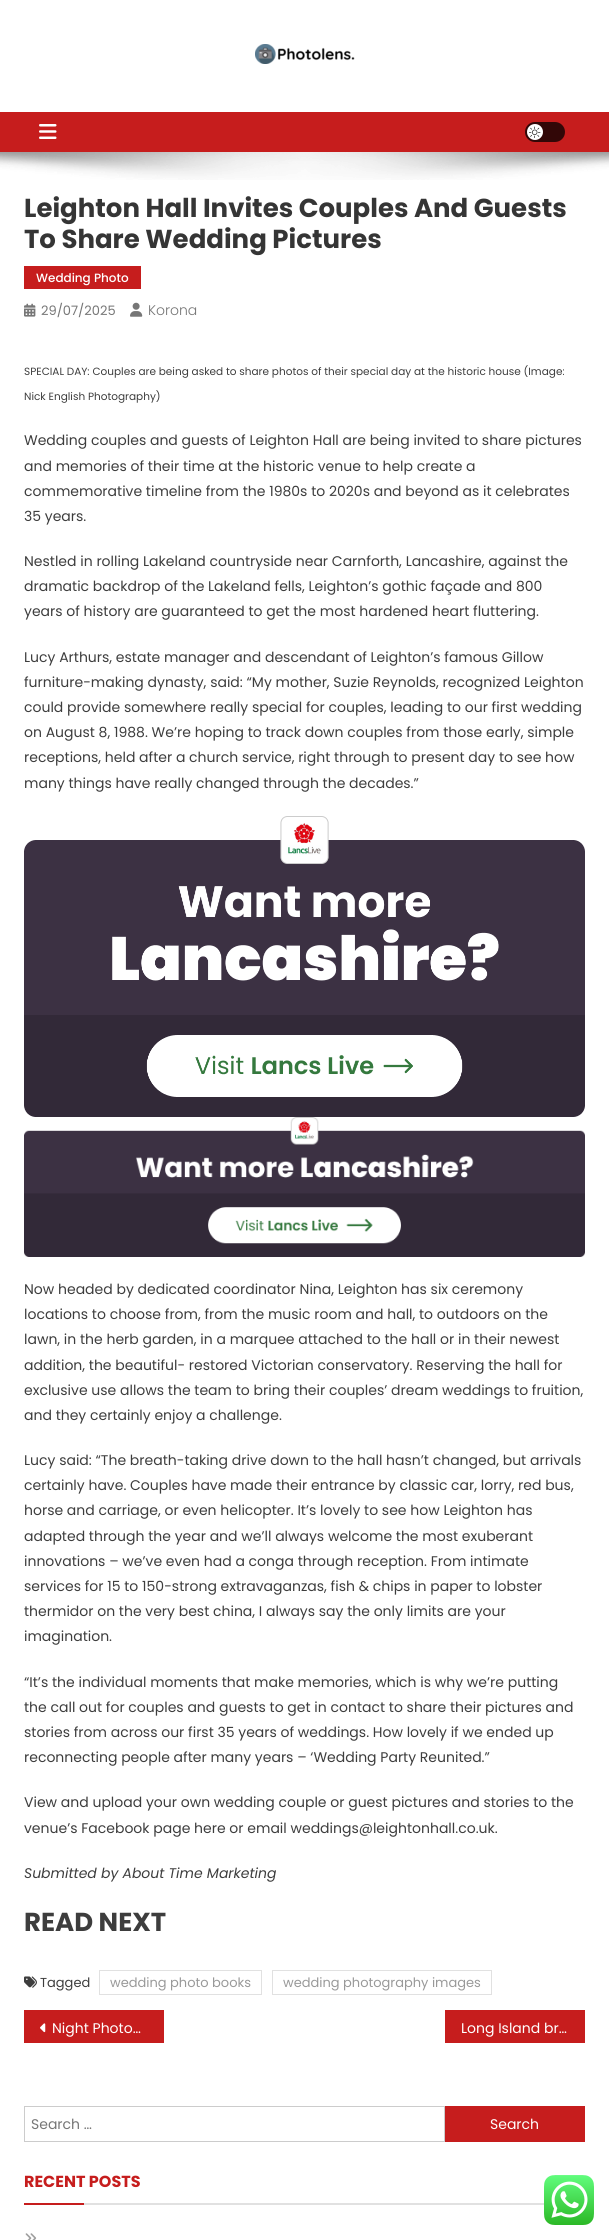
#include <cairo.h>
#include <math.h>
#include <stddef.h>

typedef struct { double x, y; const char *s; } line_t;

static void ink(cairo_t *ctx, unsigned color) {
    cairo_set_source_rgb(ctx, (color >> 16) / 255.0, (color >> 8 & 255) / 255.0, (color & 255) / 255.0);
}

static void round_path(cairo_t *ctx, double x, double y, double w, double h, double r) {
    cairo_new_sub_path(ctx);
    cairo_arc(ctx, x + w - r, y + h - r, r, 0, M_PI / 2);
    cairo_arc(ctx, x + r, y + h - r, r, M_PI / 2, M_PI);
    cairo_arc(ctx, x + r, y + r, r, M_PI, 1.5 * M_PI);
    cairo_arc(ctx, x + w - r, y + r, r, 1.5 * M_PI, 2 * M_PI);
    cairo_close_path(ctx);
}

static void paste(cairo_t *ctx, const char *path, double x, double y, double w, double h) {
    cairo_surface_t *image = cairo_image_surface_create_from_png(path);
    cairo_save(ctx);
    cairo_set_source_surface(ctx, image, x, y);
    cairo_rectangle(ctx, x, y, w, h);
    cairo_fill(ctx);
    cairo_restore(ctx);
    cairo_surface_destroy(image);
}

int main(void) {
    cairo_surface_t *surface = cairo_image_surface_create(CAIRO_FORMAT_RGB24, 609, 2240);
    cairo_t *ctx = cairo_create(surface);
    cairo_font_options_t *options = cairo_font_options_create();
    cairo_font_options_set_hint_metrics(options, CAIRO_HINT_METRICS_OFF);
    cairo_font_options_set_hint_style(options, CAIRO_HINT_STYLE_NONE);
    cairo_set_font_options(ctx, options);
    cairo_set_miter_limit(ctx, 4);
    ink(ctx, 0xFFFFFF);
    cairo_paint(ctx);
    paste(ctx, "media/1.png", 255, 44, 100, 20);
    ink(ctx, 0xC61D1D);
    cairo_rectangle(ctx, 0, 112, 609, 40);
    cairo_fill(ctx);
    paste(ctx, "media/2.png", 39, 124, 18, 15);
    ink(ctx, 0x320707);
    round_path(ctx, 525, 122, 40, 20, 10);
    cairo_fill(ctx);
    ink(ctx, 0xFFFFFF);
    cairo_arc(ctx, 535, 132, 8, 0, 2 * M_PI);
    cairo_fill(ctx);
    paste(ctx, "media/3.png", 529, 126, 12, 12);
    paste(ctx, "media/4.png", 0, 152, 609, 28);
    cairo_select_font_face(ctx, "Poppins", CAIRO_FONT_SLANT_NORMAL, CAIRO_FONT_WEIGHT_BOLD);
    cairo_set_font_size(ctx, 26);
    ink(ctx, 0x353535);
    cairo_move_to(ctx, 24, 217);
    cairo_show_text(ctx, "Leighton Hall Invites Couples And Guests");
    cairo_move_to(ctx, 24, 248);
    cairo_show_text(ctx, "To Share Wedding Pictures");
    ink(ctx, 0xC61D1D);
    cairo_rectangle(ctx, 24, 266, 117, 23);
    cairo_fill(ctx);
    cairo_select_font_face(ctx, "Poppins Medium", CAIRO_FONT_SLANT_NORMAL, CAIRO_FONT_WEIGHT_NORMAL);
    cairo_set_font_size(ctx, 12);
    ink(ctx, 0xFFFFFF);
    cairo_move_to(ctx, 36, 282);
    cairo_show_text(ctx, "Wedding Photo");
    paste(ctx, "media/5.png", 24, 303, 12, 14);
    cairo_select_font_face(ctx, "Poppins", CAIRO_FONT_SLANT_NORMAL, CAIRO_FONT_WEIGHT_NORMAL);
    cairo_set_font_size(ctx, 13);
    ink(ctx, 0x767676);
    cairo_move_to(ctx, 41, 315);
    cairo_show_text(ctx, "29/07/2025");
    paste(ctx, "media/6.png", 130, 302, 13, 15);
    cairo_select_font_face(ctx, "Poppins Light", CAIRO_FONT_SLANT_NORMAL, CAIRO_FONT_WEIGHT_NORMAL);
    cairo_set_font_size(ctx, 14);
    cairo_move_to(ctx, 148, 315);
    cairo_show_text(ctx, "Korona");
    cairo_select_font_face(ctx, "Poppins", CAIRO_FONT_SLANT_NORMAL, CAIRO_FONT_WEIGHT_NORMAL);
    cairo_set_font_size(ctx, 10.5);
    ink(ctx, 0x3D3D3D);
    cairo_move_to(ctx, 24, 375);
    cairo_show_text(ctx, "SPECIAL DAY: Couples are being asked to share photos of their special day at the historic house (Image:");
    cairo_move_to(ctx, 24, 400);
    cairo_show_text(ctx, "Nick English Photography)");
    cairo_set_font_size(ctx, 14);
    {
        static const line_t items[] = {
            {24, 445, "Wedding couples and guests of Leighton Hall are being invited to share pictures"},
            {24, 471, "and memories of their time at the historic venue to help create a"},
            {24, 496, "commemorative timeline from the 1980s to 2020s and beyond as it celebrates"},
            {24, 521, "35 years."},
            {24, 566, "Nestled in rolling Lakeland countryside near Carnforth, Lancashire, against the"},
            {24, 591, "dramatic backdrop of the Lakeland fells, Leighton’s gothic façade and 800"},
            {24, 616, "years of history are guaranteed to get the most hardened heart fluttering."},
            {24, 662, "Lucy Arthurs, estate manager and descendant of Leighton’s famous Gillow"},
            {24, 687, "furniture-making dynasty, said: “My mother, Suzie Reynolds, recognized Leighton"},
            {24, 712, "could provide somewhere really special for couples, leading to our first wedding"},
            {24, 737, "on August 8, 1988. We’re hoping to track down couples from those early, simple"},
            {24, 762, "receptions, held after a church service, right through to present day to see how"},
            {24, 788, "many things have really changed through the decades.”"},
        };
        for (size_t i = 0; i < sizeof items / sizeof *items; i++) {
            cairo_move_to(ctx, items[i].x, items[i].y);
            cairo_show_text(ctx, items[i].s);
        }
    }
    paste(ctx, "media/7.png", 24, 816, 561, 301);
    paste(ctx, "media/8.png", 24, 1117, 561, 140);
    {
        static const line_t items[] = {
            {24, 1294, "Now headed by dedicated coordinator Nina, Leighton has six ceremony"},
            {24, 1319, "locations to choose from, from the music room and hall, to outdoors on the"},
            {24, 1344, "lawn, in the herb garden, in a marquee attached to the hall or in their newest"},
            {24, 1370, "addition, the beautiful- restored Victorian conservatory. Reserving the hall for"},
            {24, 1395, "exclusive use allows the team to bring their couples’ dream weddings to fruition,"},
            {24, 1420, "and they certainly enjoy a challenge."},
            {24, 1465, "Lucy said: “The breath-taking drive down to the hall hasn’t changed, but arrivals"},
            {24, 1490, "certainly have. Couples have made their entrance by classic car, lorry, red bus,"},
            {24, 1515, "horse and carriage, or even helicopter. It’s lovely to see how Leighton has"},
            {24, 1541, "adapted through the year and we’ll always welcome the most exuberant"},
            {24, 1566, "innovations – we’ve even had a conga through reception. From intimate"},
            {24, 1591, "services for 15 to 150-strong extravaganzas, fish & chips in paper to lobster"},
            {24, 1616, "thermidor on the very best china, I always say the only limits are your"},
            {24, 1641, "imagination."},
            {24, 1687, "“It’s the individual moments that make memories, which is why we’re putting"},
            {24, 1712, "the call out for couples and guests to get in contact to share their pictures and"},
            {24, 1737, "stories from across our first 35 years of weddings. How lovely if we ended up"},
            {24, 1762, "reconnecting people after many years – ‘Wedding Party Reunited.”"},
            {24, 1807, "View and upload your own wedding couple or guest pictures and stories to the"},
            {24, 1833, "venue’s Facebook page here or email weddings@leightonhall.co.uk."},
        };
        for (size_t i = 0; i < sizeof items / sizeof *items; i++) {
            cairo_move_to(ctx, items[i].x, items[i].y);
            cairo_show_text(ctx, items[i].s);
        }
    }
    cairo_select_font_face(ctx, "Poppins", CAIRO_FONT_SLANT_ITALIC, CAIRO_FONT_WEIGHT_NORMAL);
    cairo_move_to(ctx, 24, 1878);
    cairo_show_text(ctx, "Submitted by About Time Marketing");
    cairo_select_font_face(ctx, "Poppins", CAIRO_FONT_SLANT_NORMAL, CAIRO_FONT_WEIGHT_BOLD);
    cairo_set_font_size(ctx, 26);
    cairo_move_to(ctx, 24, 1931);
    cairo_show_text(ctx, "READ NEXT");
    paste(ctx, "media/9.png", 24, 1976, 13, 12);
    cairo_select_font_face(ctx, "Poppins", CAIRO_FONT_SLANT_NORMAL, CAIRO_FONT_WEIGHT_NORMAL);
    cairo_set_font_size(ctx, 13);
    cairo_move_to(ctx, 40, 1987);
    cairo_show_text(ctx, "Tagged");
    cairo_rectangle(ctx, 99.5, 1970.5, 162, 24);
    ink(ctx, 0xE1E1E1);
    cairo_set_line_width(ctx, 1);
    cairo_stroke(ctx);
    ink(ctx, 0x999999);
    cairo_move_to(ctx, 110, 1987);
    cairo_show_text(ctx, "wedding photo books");
    cairo_rectangle(ctx, 272.5, 1970.5, 219, 24);
    ink(ctx, 0xE1E1E1);
    cairo_stroke(ctx);
    ink(ctx, 0x999999);
    cairo_move_to(ctx, 283, 1987);
    cairo_show_text(ctx, "wedding photography images");
    ink(ctx, 0xC61D1D);
    cairo_rectangle(ctx, 24, 2010, 140, 33);
    cairo_fill(ctx);
    paste(ctx, "media/10.png", 40, 2023, 6, 10);
    cairo_set_font_size(ctx, 14);
    ink(ctx, 0xFFFFFF);
    cairo_move_to(ctx, 52, 2033);
    cairo_show_text(ctx, "Night Photo…");
    ink(ctx, 0xC61D1D);
    cairo_rectangle(ctx, 445, 2010, 140, 33);
    cairo_fill(ctx);
    ink(ctx, 0xFFFFFF);
    cairo_move_to(ctx, 461, 2033);
    cairo_show_text(ctx, "Long Island br…");
    cairo_rectangle(ctx, 24.5, 2106.5, 420, 35);
    ink(ctx, 0xCCCCCC);
    cairo_stroke(ctx);
    ink(ctx, 0x767676);
    cairo_move_to(ctx, 31, 2129);
    cairo_show_text(ctx, "Search …");
    ink(ctx, 0xC61D1D);
    cairo_rectangle(ctx, 445, 2106, 140, 36);
    cairo_fill(ctx);
    ink(ctx, 0xFFFFFF);
    cairo_move_to(ctx, 490, 2129);
    cairo_show_text(ctx, "Search");
    ink(ctx, 0xE1E1E1);
    cairo_rectangle(ctx, 84, 2203, 460, 2);
    cairo_fill(ctx);
    cairo_select_font_face(ctx, "Poppins", CAIRO_FONT_SLANT_NORMAL, CAIRO_FONT_WEIGHT_BOLD);
    cairo_set_font_size(ctx, 16);
    ink(ctx, 0xC61D1D);
    cairo_move_to(ctx, 24, 2187);
    cairo_show_text(ctx, "RECENT POSTS");
    cairo_rectangle(ctx, 24, 2203, 60, 2);
    cairo_fill(ctx);
    paste(ctx, "media/11.png", 25, 2233, 12, 7);
    paste(ctx, "media/12.png", 544, 2175, 50, 50);
    cairo_surface_write_to_png(surface, "image.png");
    cairo_font_options_destroy(options);
    cairo_destroy(ctx);
    cairo_surface_destroy(surface);
    return 0;
}
